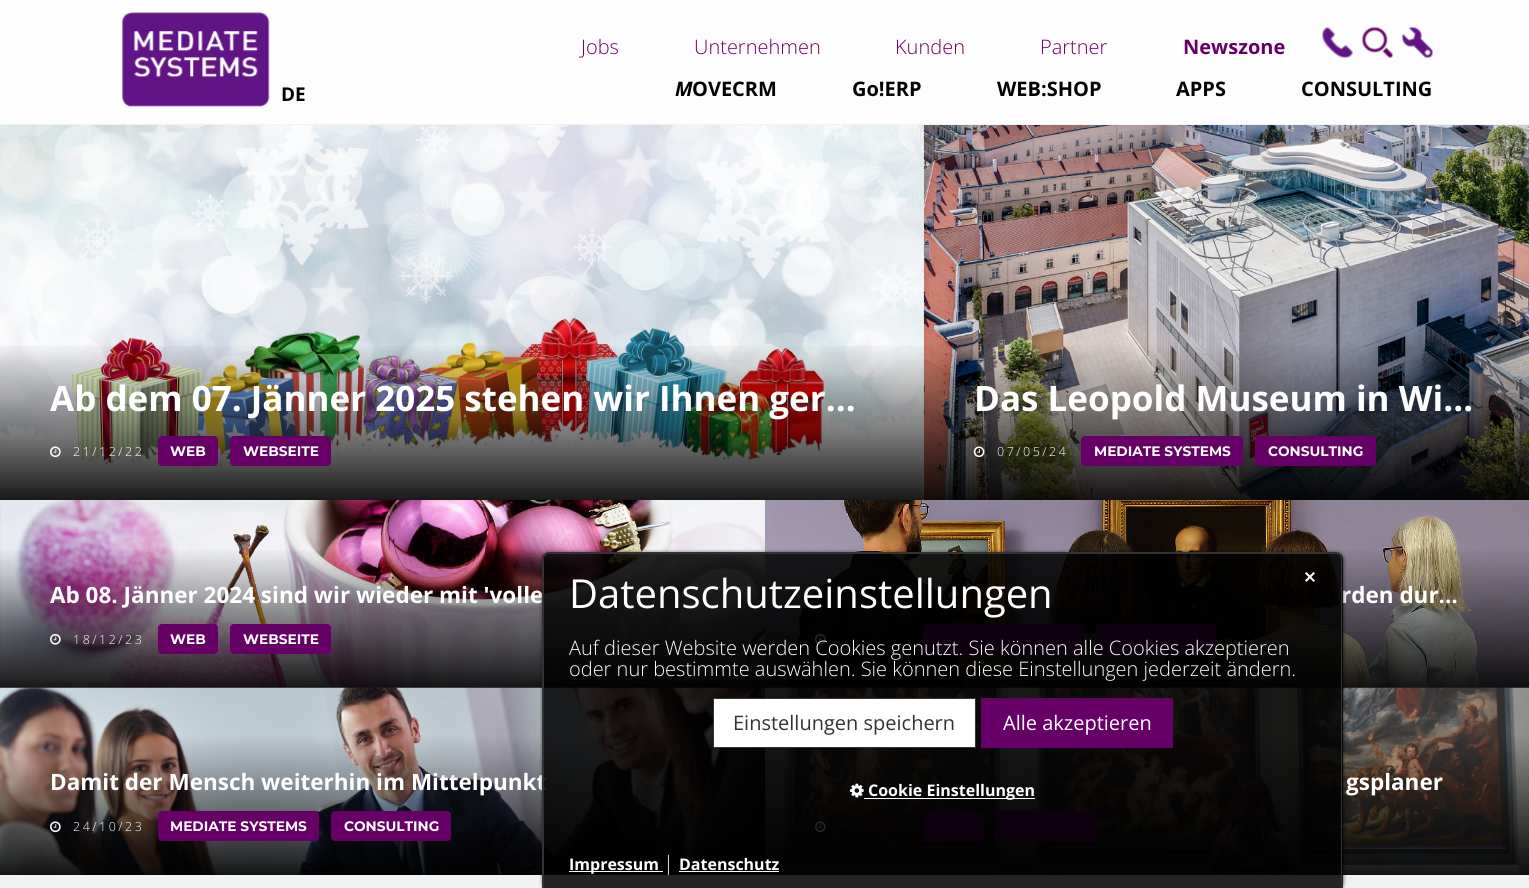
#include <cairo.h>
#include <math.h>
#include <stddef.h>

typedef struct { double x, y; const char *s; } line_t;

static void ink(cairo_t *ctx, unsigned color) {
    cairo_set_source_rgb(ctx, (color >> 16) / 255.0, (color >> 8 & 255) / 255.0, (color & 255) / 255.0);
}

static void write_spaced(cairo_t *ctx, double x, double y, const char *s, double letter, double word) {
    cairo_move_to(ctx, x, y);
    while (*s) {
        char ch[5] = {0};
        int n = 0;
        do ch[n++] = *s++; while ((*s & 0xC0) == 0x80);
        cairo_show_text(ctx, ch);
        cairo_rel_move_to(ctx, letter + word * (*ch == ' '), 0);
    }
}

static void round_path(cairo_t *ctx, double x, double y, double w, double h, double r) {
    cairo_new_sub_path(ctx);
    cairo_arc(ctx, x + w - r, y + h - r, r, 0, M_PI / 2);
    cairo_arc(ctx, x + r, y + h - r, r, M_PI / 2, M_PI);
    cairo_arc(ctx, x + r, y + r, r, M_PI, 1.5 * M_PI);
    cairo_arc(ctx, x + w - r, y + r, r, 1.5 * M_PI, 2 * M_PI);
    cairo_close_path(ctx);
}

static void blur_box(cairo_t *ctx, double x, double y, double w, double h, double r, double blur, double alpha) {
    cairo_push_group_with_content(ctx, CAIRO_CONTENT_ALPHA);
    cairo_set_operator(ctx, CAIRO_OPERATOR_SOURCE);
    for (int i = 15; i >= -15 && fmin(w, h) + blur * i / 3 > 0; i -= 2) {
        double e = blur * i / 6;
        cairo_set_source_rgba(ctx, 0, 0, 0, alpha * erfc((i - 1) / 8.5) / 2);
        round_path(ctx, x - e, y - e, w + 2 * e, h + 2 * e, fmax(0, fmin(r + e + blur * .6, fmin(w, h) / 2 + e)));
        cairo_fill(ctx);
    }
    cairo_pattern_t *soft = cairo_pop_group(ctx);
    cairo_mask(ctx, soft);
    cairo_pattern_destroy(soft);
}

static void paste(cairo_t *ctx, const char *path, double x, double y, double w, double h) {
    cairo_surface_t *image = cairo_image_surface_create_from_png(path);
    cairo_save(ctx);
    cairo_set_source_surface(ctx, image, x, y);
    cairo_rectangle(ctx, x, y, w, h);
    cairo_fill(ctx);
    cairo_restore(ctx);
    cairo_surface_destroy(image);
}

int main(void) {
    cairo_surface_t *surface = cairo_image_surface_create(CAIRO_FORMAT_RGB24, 1529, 888);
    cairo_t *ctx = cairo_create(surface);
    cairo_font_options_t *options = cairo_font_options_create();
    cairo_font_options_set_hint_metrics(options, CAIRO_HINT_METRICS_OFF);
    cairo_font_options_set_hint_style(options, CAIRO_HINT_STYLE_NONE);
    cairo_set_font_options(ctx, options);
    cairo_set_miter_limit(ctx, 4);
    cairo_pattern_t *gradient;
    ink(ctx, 0xF0F3F2);
    cairo_paint(ctx);
    ink(ctx, 0xFCFDFC);
    cairo_rectangle(ctx, 0, 0, 1529, 124);
    cairo_fill(ctx);
    paste(ctx, "media/1.png", 122, 12, 148, 95);
    cairo_select_font_face(ctx, "Open Sans", CAIRO_FONT_SLANT_NORMAL, CAIRO_FONT_WEIGHT_BOLD);
    cairo_set_font_size(ctx, 19);
    ink(ctx, 0x000000);
    cairo_move_to(ctx, 281, 101);
    cairo_show_text(ctx, "DE");
    cairo_select_font_face(ctx, "Open Sans Light", CAIRO_FONT_SLANT_NORMAL, CAIRO_FONT_WEIGHT_NORMAL);
    cairo_set_font_size(ctx, 20);
    ink(ctx, 0x660066);
    {
        static const line_t items[] = {
            {581, 54, "Jobs"},
            {694, 54, "Unternehmen"},
            {895, 54, "Kunden"},
            {1040, 54, "Partner"},
        };
        for (size_t i = 0; i < sizeof items / sizeof *items; i++) {
            cairo_move_to(ctx, items[i].x, items[i].y);
            cairo_show_text(ctx, items[i].s);
        }
    }
    cairo_select_font_face(ctx, "Open Sans", CAIRO_FONT_SLANT_NORMAL, CAIRO_FONT_WEIGHT_BOLD);
    cairo_move_to(ctx, 1183, 54);
    cairo_show_text(ctx, "Newszone");
    paste(ctx, "media/2.png", 1322, 27, 31, 31);
    paste(ctx, "media/3.png", 1362, 27, 31, 31);
    paste(ctx, "media/4.png", 1402, 27, 31, 31);
    cairo_select_font_face(ctx, "Open Sans", CAIRO_FONT_SLANT_ITALIC, CAIRO_FONT_WEIGHT_BOLD);
    ink(ctx, 0x000000);
    cairo_move_to(ctx, 675, 96);
    cairo_show_text(ctx, "M");
    cairo_select_font_face(ctx, "Open Sans", CAIRO_FONT_SLANT_NORMAL, CAIRO_FONT_WEIGHT_BOLD);
    {
        static const line_t items[] = {
            {692, 96, "OVECRM"},
            {852, 96, "Go!ERP"},
            {997, 96, "WEB:SHOP"},
            {1176, 96, "APPS"},
            {1301, 96, "CONSULTING"},
        };
        for (size_t i = 0; i < sizeof items / sizeof *items; i++) {
            cairo_move_to(ctx, items[i].x, items[i].y);
            cairo_show_text(ctx, items[i].s);
        }
    }
    paste(ctx, "media/5.png", 0, 125, 924, 375);
    gradient = cairo_pattern_create_linear(462, 342, 462, 500);
    cairo_pattern_add_color_stop_rgba(gradient, 0, 0, 0, 0, 0);
    cairo_pattern_add_color_stop_rgba(gradient, 1, 0, 0, 0, 0.9);
    cairo_set_source(ctx, gradient);
    cairo_pattern_destroy(gradient);
    cairo_rectangle(ctx, 0, 346, 924, 154);
    cairo_fill(ctx);
    cairo_set_font_size(ctx, 35);
    ink(ctx, 0xFFFFFF);
    cairo_move_to(ctx, 50, 411);
    cairo_show_text(ctx, "Ab dem 07. Jänner 2025 stehen wir Ihnen ger…");
    paste(ctx, "media/6.png", 50, 446, 11, 12);
    cairo_select_font_face(ctx, "Open Sans Light", CAIRO_FONT_SLANT_NORMAL, CAIRO_FONT_WEIGHT_NORMAL);
    cairo_set_font_size(ctx, 12.5);
    write_spaced(ctx, 73, 456, "21/12/22", 2.5, 0);
    ink(ctx, 0x660066);
    round_path(ctx, 158, 436, 60, 30, 4);
    cairo_fill(ctx);
    cairo_select_font_face(ctx, "Montserrat", CAIRO_FONT_SLANT_NORMAL, CAIRO_FONT_WEIGHT_BOLD);
    cairo_set_font_size(ctx, 13.75);
    ink(ctx, 0xFFFFFF);
    cairo_move_to(ctx, 170, 456);
    cairo_show_text(ctx, "WEB");
    ink(ctx, 0x660066);
    round_path(ctx, 230, 436, 101, 30, 4);
    cairo_fill(ctx);
    ink(ctx, 0xFFFFFF);
    cairo_move_to(ctx, 243, 456);
    cairo_show_text(ctx, "WEBSEITE");
    paste(ctx, "media/7.png", 923, 125, 606, 375);
    cairo_select_font_face(ctx, "Open Sans", CAIRO_FONT_SLANT_NORMAL, CAIRO_FONT_WEIGHT_BOLD);
    cairo_set_font_size(ctx, 35);
    cairo_move_to(ctx, 974, 411);
    cairo_show_text(ctx, "Das Leopold Museum in Wi…");
    paste(ctx, "media/8.png", 973, 446, 12, 12);
    cairo_select_font_face(ctx, "Open Sans Light", CAIRO_FONT_SLANT_NORMAL, CAIRO_FONT_WEIGHT_NORMAL);
    cairo_set_font_size(ctx, 12.5);
    write_spaced(ctx, 997, 456, "07/05/24", 2.5, 0);
    ink(ctx, 0x660066);
    round_path(ctx, 1081, 436, 162, 30, 4);
    cairo_fill(ctx);
    cairo_select_font_face(ctx, "Montserrat", CAIRO_FONT_SLANT_NORMAL, CAIRO_FONT_WEIGHT_BOLD);
    cairo_set_font_size(ctx, 13.75);
    ink(ctx, 0xFFFFFF);
    cairo_move_to(ctx, 1094, 456);
    cairo_show_text(ctx, "MEDIATE SYSTEMS");
    ink(ctx, 0x660066);
    round_path(ctx, 1255, 436, 121, 30, 4);
    cairo_fill(ctx);
    ink(ctx, 0xFFFFFF);
    cairo_move_to(ctx, 1268, 456);
    cairo_show_text(ctx, "CONSULTING");
    paste(ctx, "media/9.png", 0, 500, 765, 188);
    gradient = cairo_pattern_create_linear(383, 547, 383, 688);
    cairo_pattern_add_color_stop_rgba(gradient, 0, 0, 0, 0, 0);
    cairo_pattern_add_color_stop_rgba(gradient, 1, 0, 0, 0, 0.9);
    cairo_set_source(ctx, gradient);
    cairo_pattern_destroy(gradient);
    cairo_rectangle(ctx, 0, 550, 765, 138);
    cairo_fill(ctx);
    cairo_select_font_face(ctx, "Open Sans", CAIRO_FONT_SLANT_NORMAL, CAIRO_FONT_WEIGHT_BOLD);
    cairo_set_font_size(ctx, 22.5);
    ink(ctx, 0xFFFFFF);
    cairo_move_to(ctx, 50, 603);
    cairo_show_text(ctx, "Ab 08. Jänner 2024 sind wir wieder mit 'volle");
    paste(ctx, "media/10.png", 50, 633, 11, 12);
    cairo_select_font_face(ctx, "Open Sans Light", CAIRO_FONT_SLANT_NORMAL, CAIRO_FONT_WEIGHT_NORMAL);
    cairo_set_font_size(ctx, 12.5);
    write_spaced(ctx, 73, 644, "18/12/23", 2.5, 0);
    ink(ctx, 0x660066);
    round_path(ctx, 158, 624, 60, 30, 4);
    cairo_fill(ctx);
    cairo_select_font_face(ctx, "Montserrat", CAIRO_FONT_SLANT_NORMAL, CAIRO_FONT_WEIGHT_BOLD);
    cairo_set_font_size(ctx, 13.75);
    ink(ctx, 0xFFFFFF);
    cairo_move_to(ctx, 170, 644);
    cairo_show_text(ctx, "WEB");
    ink(ctx, 0x660066);
    round_path(ctx, 230, 624, 101, 30, 4);
    cairo_fill(ctx);
    ink(ctx, 0xFFFFFF);
    cairo_move_to(ctx, 243, 644);
    cairo_show_text(ctx, "WEBSEITE");
    paste(ctx, "media/11.png", 765, 500, 764, 188);
    gradient = cairo_pattern_create_linear(1148, 547, 1148, 688);
    cairo_pattern_add_color_stop_rgba(gradient, 0, 0, 0, 0, 0);
    cairo_pattern_add_color_stop_rgba(gradient, 1, 0, 0, 0, 0.9);
    cairo_set_source(ctx, gradient);
    cairo_pattern_destroy(gradient);
    cairo_rectangle(ctx, 765, 550, 764, 138);
    cairo_fill(ctx);
    cairo_select_font_face(ctx, "Open Sans", CAIRO_FONT_SLANT_NORMAL, CAIRO_FONT_WEIGHT_BOLD);
    cairo_set_font_size(ctx, 22.5);
    ink(ctx, 0xFFFFFF);
    cairo_move_to(ctx, 1341, 603);
    cairo_show_text(ctx, "rden dur…");
    paste(ctx, "media/12.png", 815, 633, 11, 12);
    ink(ctx, 0x660066);
    round_path(ctx, 923, 624, 161, 30, 4);
    cairo_fill(ctx);
    round_path(ctx, 1096, 624, 120, 30, 4);
    cairo_fill(ctx);
    paste(ctx, "media/13.png", 0, 687, 765, 188);
    ink(ctx, 0xFFFFFF);
    cairo_move_to(ctx, 50, 790);
    cairo_show_text(ctx, "Damit der Mensch weiterhin im Mittelpunkt");
    paste(ctx, "media/14.png", 50, 821, 11, 12);
    cairo_select_font_face(ctx, "Open Sans Light", CAIRO_FONT_SLANT_NORMAL, CAIRO_FONT_WEIGHT_NORMAL);
    cairo_set_font_size(ctx, 12.5);
    write_spaced(ctx, 73, 831, "24/10/23", 2.5, 0);
    ink(ctx, 0x660066);
    round_path(ctx, 158, 811, 161, 30, 4);
    cairo_fill(ctx);
    cairo_select_font_face(ctx, "Montserrat", CAIRO_FONT_SLANT_NORMAL, CAIRO_FONT_WEIGHT_BOLD);
    cairo_set_font_size(ctx, 13.75);
    ink(ctx, 0xFFFFFF);
    cairo_move_to(ctx, 170, 831);
    cairo_show_text(ctx, "MEDIATE SYSTEMS");
    ink(ctx, 0x660066);
    round_path(ctx, 331, 811, 120, 30, 4);
    cairo_fill(ctx);
    ink(ctx, 0xFFFFFF);
    cairo_move_to(ctx, 344, 831);
    cairo_show_text(ctx, "CONSULTING");
    paste(ctx, "media/15.png", 765, 687, 764, 188);
    cairo_select_font_face(ctx, "Open Sans", CAIRO_FONT_SLANT_NORMAL, CAIRO_FONT_WEIGHT_BOLD);
    cairo_set_font_size(ctx, 22.5);
    cairo_move_to(ctx, 1346, 790);
    cairo_show_text(ctx, "gsplaner");
    paste(ctx, "media/16.png", 815, 821, 11, 12);
    ink(ctx, 0x660066);
    round_path(ctx, 923, 811, 60, 30, 4);
    cairo_fill(ctx);
    round_path(ctx, 995, 811, 101, 30, 4);
    cairo_fill(ctx);
    cairo_save(ctx);
    cairo_set_fill_rule(ctx, CAIRO_FILL_RULE_EVEN_ODD);
    cairo_new_path(ctx);
    cairo_move_to(ctx, 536, 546);
    cairo_line_to(ctx, 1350, 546);
    cairo_line_to(ctx, 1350, 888);
    cairo_line_to(ctx, 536, 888);
    cairo_close_path(ctx);
    cairo_move_to(ctx, 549, 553);
    cairo_line_to(ctx, 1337, 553);
    cairo_curve_to(ctx, 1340.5, 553, 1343, 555.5, 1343, 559);
    cairo_line_to(ctx, 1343, 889);
    cairo_line_to(ctx, 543, 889);
    cairo_line_to(ctx, 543, 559);
    cairo_curve_to(ctx, 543, 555.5, 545.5, 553, 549, 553);
    cairo_close_path(ctx);
    cairo_clip(ctx);
    ink(ctx, 0x000000);
    blur_box(ctx, 543, 553, 800, 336, 6, 2, 0.8);
    cairo_restore(ctx);
    cairo_set_source_rgba(ctx, 0, 0, 0, 0.85);
    cairo_new_path(ctx);
    cairo_move_to(ctx, 549, 553);
    cairo_line_to(ctx, 1337, 553);
    cairo_curve_to(ctx, 1340.5, 553, 1343, 555.5, 1343, 559);
    cairo_line_to(ctx, 1343, 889);
    cairo_line_to(ctx, 543, 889);
    cairo_line_to(ctx, 543, 559);
    cairo_curve_to(ctx, 543, 555.5, 545.5, 553, 549, 553);
    cairo_close_path(ctx);
    cairo_fill(ctx);
    ink(ctx, 0x333333);
    cairo_set_fill_rule(ctx, CAIRO_FILL_RULE_EVEN_ODD);
    cairo_new_path(ctx);
    cairo_move_to(ctx, 549, 552);
    cairo_line_to(ctx, 1336, 552);
    cairo_curve_to(ctx, 1340, 552, 1342, 555, 1342, 559);
    cairo_line_to(ctx, 1342, 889);
    cairo_line_to(ctx, 542, 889);
    cairo_line_to(ctx, 542, 559);
    cairo_curve_to(ctx, 542, 555, 545, 552, 549, 552);
    cairo_close_path(ctx);
    cairo_move_to(ctx, 549, 554);
    cairo_line_to(ctx, 1336, 554);
    cairo_curve_to(ctx, 1339, 554, 1341, 556, 1341, 559);
    cairo_line_to(ctx, 1341, 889);
    cairo_line_to(ctx, 544, 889);
    cairo_line_to(ctx, 544, 559);
    cairo_curve_to(ctx, 544, 556, 546, 554, 549, 554);
    cairo_close_path(ctx);
    cairo_fill(ctx);
    cairo_select_font_face(ctx, "Open Sans", CAIRO_FONT_SLANT_NORMAL, CAIRO_FONT_WEIGHT_NORMAL);
    cairo_set_font_size(ctx, 40);
    ink(ctx, 0xFFFFFF);
    cairo_move_to(ctx, 569, 608);
    cairo_show_text(ctx, "Datenschutzeinstellungen");
    cairo_select_font_face(ctx, "DejaVu Sans", CAIRO_FONT_SLANT_NORMAL, CAIRO_FONT_WEIGHT_BOLD);
    cairo_set_font_size(ctx, 16);
    cairo_move_to(ctx, 1303, 583);
    cairo_show_text(ctx, "✕");
    cairo_select_font_face(ctx, "Open Sans Light", CAIRO_FONT_SLANT_NORMAL, CAIRO_FONT_WEIGHT_NORMAL);
    cairo_set_font_size(ctx, 20);
    cairo_move_to(ctx, 569, 655);
    cairo_show_text(ctx, "Auf dieser Website werden Cookies genutzt. Sie können alle Cookies akzeptieren");
    cairo_move_to(ctx, 569, 676);
    cairo_show_text(ctx, "oder nur bestimmte auswählen. Sie können diese Einstellungen jederzeit ändern.");
    cairo_rectangle(ctx, 713.5, 698.5, 262, 49);
    cairo_fill_preserve(ctx);
    ink(ctx, 0x333333);
    cairo_set_line_width(ctx, 1);
    cairo_stroke(ctx);
    cairo_select_font_face(ctx, "Open Sans", CAIRO_FONT_SLANT_NORMAL, CAIRO_FONT_WEIGHT_NORMAL);
    cairo_move_to(ctx, 733, 730);
    cairo_show_text(ctx, "Einstellungen speichern");
    ink(ctx, 0x660066);
    cairo_rectangle(ctx, 981, 698, 192, 50);
    cairo_fill(ctx);
    ink(ctx, 0xFFFFFF);
    cairo_move_to(ctx, 1003, 730);
    cairo_show_text(ctx, "Alle akzeptieren");
    paste(ctx, "media/17.png", 850, 783, 14, 15);
    cairo_rectangle(ctx, 864, 798, 171, 1);
    cairo_fill(ctx);
    cairo_select_font_face(ctx, "Open Sans", CAIRO_FONT_SLANT_NORMAL, CAIRO_FONT_WEIGHT_BOLD);
    cairo_set_font_size(ctx, 16);
    cairo_move_to(ctx, 868, 796);
    cairo_show_text(ctx, "Cookie Einstellungen");
    cairo_rectangle(ctx, 569, 871, 94, 1);
    cairo_fill(ctx);
    cairo_move_to(ctx, 569, 870);
    cairo_show_text(ctx, "Impressum");
    cairo_select_font_face(ctx, "Open Sans Light", CAIRO_FONT_SLANT_NORMAL, CAIRO_FONT_WEIGHT_NORMAL);
    cairo_set_font_size(ctx, 20);
    cairo_move_to(ctx, 663, 870);
    cairo_show_text(ctx, "|");
    cairo_select_font_face(ctx, "Open Sans", CAIRO_FONT_SLANT_NORMAL, CAIRO_FONT_WEIGHT_BOLD);
    cairo_set_font_size(ctx, 16);
    cairo_move_to(ctx, 679, 870);
    cairo_show_text(ctx, "Datenschutz");
    cairo_rectangle(ctx, 679, 871, 100, 1);
    cairo_fill(ctx);
    cairo_surface_write_to_png(surface, "image.png");
    cairo_font_options_destroy(options);
    cairo_destroy(ctx);
    cairo_surface_destroy(surface);
    return 0;
}
